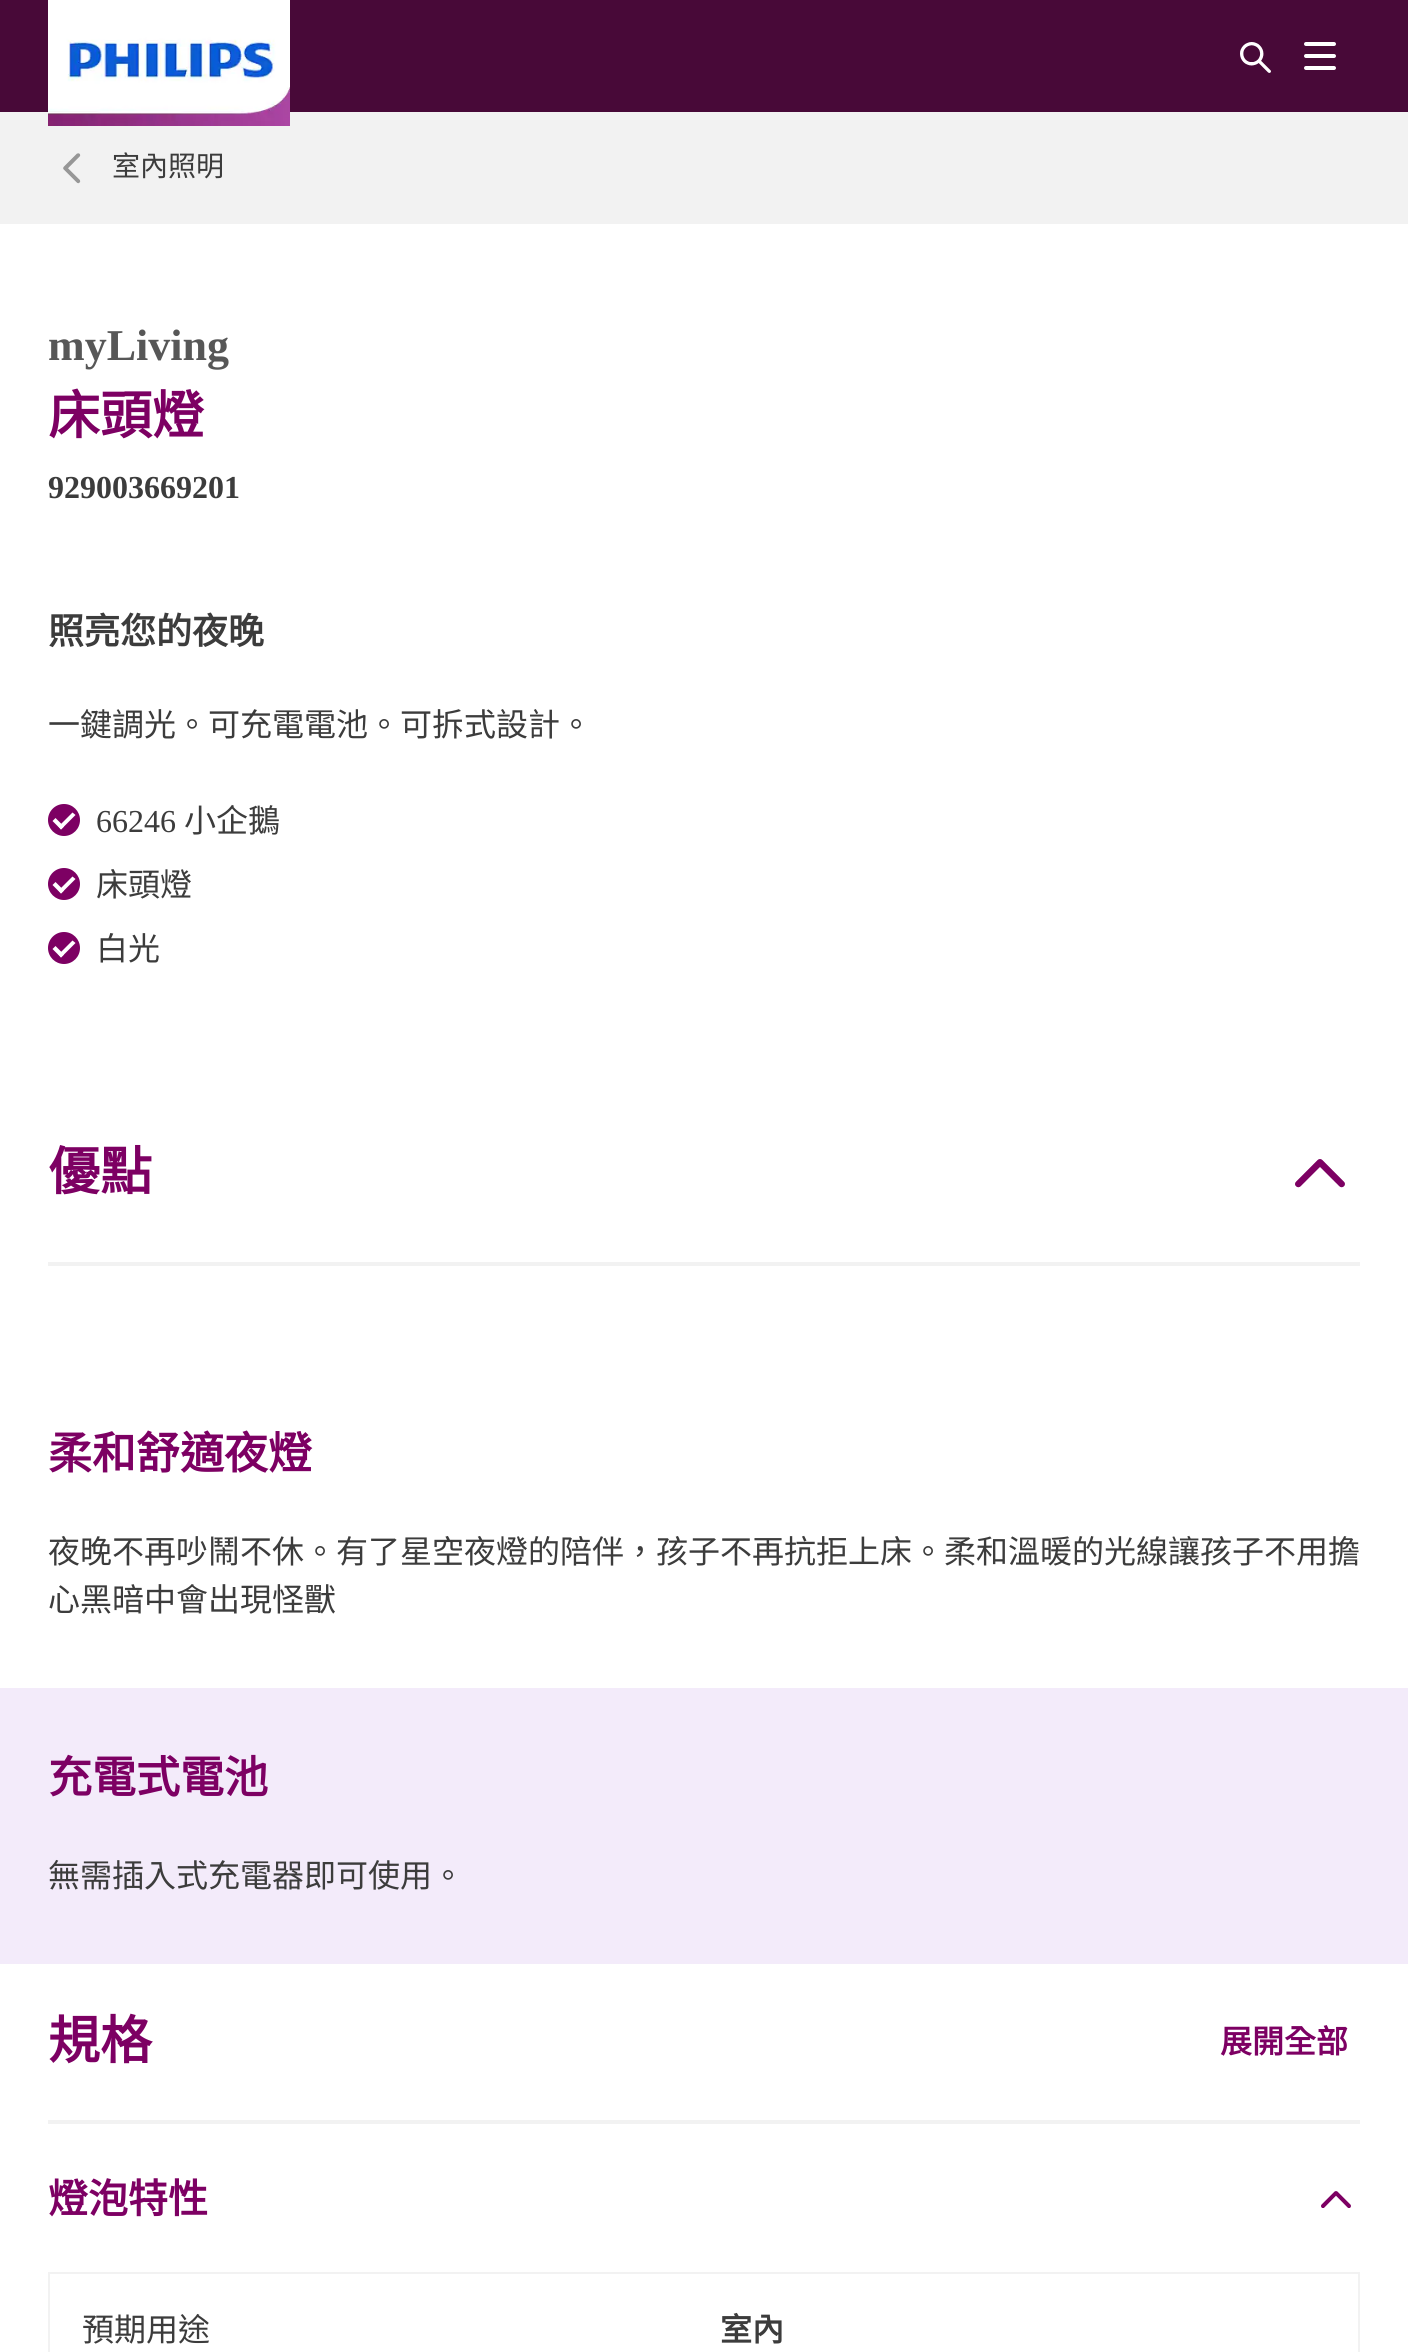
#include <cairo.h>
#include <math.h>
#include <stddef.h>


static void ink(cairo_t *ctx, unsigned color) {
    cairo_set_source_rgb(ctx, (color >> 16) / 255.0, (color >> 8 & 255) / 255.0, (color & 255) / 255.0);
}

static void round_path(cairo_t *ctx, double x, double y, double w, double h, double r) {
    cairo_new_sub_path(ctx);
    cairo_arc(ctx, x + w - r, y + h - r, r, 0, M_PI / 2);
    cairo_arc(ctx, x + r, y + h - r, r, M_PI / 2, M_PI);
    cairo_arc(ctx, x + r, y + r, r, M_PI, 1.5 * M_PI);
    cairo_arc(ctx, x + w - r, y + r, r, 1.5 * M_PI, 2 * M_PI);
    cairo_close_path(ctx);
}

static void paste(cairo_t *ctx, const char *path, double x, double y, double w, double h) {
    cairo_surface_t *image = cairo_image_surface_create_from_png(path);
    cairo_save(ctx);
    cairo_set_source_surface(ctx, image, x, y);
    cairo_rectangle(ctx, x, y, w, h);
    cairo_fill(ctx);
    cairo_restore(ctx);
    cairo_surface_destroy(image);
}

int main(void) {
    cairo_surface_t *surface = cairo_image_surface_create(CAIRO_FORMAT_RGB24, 1408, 2352);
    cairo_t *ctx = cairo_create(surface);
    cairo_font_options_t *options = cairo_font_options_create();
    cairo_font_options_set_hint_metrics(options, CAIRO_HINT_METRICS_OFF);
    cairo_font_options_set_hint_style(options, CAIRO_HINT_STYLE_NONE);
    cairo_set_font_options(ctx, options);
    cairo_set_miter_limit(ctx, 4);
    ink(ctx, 0xFFFFFF);
    cairo_paint(ctx);
    ink(ctx, 0x480938);
    cairo_rectangle(ctx, 0, 0, 1408, 112);
    cairo_fill(ctx);
    ink(ctx, 0xF2F2F2);
    cairo_rectangle(ctx, 0, 112, 1408, 112);
    cairo_fill(ctx);
    paste(ctx, "media/1.png", 48, 0, 242, 126);
    paste(ctx, "media/2.png", 1240, 42, 31, 31);
    ink(ctx, 0xFFFFFF);
    round_path(ctx, 1304, 42, 32, 4, 2);
    cairo_fill(ctx);
    round_path(ctx, 1304, 54, 32, 4, 2);
    cairo_fill(ctx);
    round_path(ctx, 1304, 66, 32, 4, 2);
    cairo_fill(ctx);
    paste(ctx, "media/3.png", 63, 153, 18, 31);
    cairo_select_font_face(ctx, "Noto Sans CJK TC", CAIRO_FONT_SLANT_NORMAL, CAIRO_FONT_WEIGHT_NORMAL);
    cairo_set_font_size(ctx, 28);
    ink(ctx, 0x3C3C3C);
    cairo_move_to(ctx, 112, 176);
    cairo_show_text(ctx, "室內照明");
    cairo_select_font_face(ctx, "Liberation Serif", CAIRO_FONT_SLANT_NORMAL, CAIRO_FONT_WEIGHT_BOLD);
    cairo_set_font_size(ctx, 44);
    ink(ctx, 0x575757);
    cairo_move_to(ctx, 48, 360);
    cairo_show_text(ctx, "myLiving");
    cairo_select_font_face(ctx, "Noto Sans CJK TC", CAIRO_FONT_SLANT_NORMAL, CAIRO_FONT_WEIGHT_BOLD);
    cairo_set_font_size(ctx, 52);
    ink(ctx, 0x7D0063);
    cairo_move_to(ctx, 48, 434);
    cairo_show_text(ctx, "床頭燈");
    cairo_select_font_face(ctx, "Liberation Serif", CAIRO_FONT_SLANT_NORMAL, CAIRO_FONT_WEIGHT_BOLD);
    cairo_set_font_size(ctx, 32);
    ink(ctx, 0x3C3C3C);
    cairo_move_to(ctx, 48, 498);
    cairo_show_text(ctx, "929003669201");
    cairo_select_font_face(ctx, "Noto Sans CJK TC", CAIRO_FONT_SLANT_NORMAL, CAIRO_FONT_WEIGHT_BOLD);
    cairo_set_font_size(ctx, 36);
    cairo_move_to(ctx, 48, 644);
    cairo_show_text(ctx, "照亮您的夜晚");
    cairo_select_font_face(ctx, "Noto Sans CJK TC", CAIRO_FONT_SLANT_NORMAL, CAIRO_FONT_WEIGHT_NORMAL);
    cairo_set_font_size(ctx, 32);
    cairo_move_to(ctx, 48, 736);
    cairo_show_text(ctx, "一鍵調光。可充電電池。可拆式設計。");
    ink(ctx, 0x7D0063);
    cairo_new_path(ctx);
    cairo_arc(ctx, 64, 820, 16, 0, 2 * M_PI);
    cairo_fill(ctx);
    cairo_select_font_face(ctx, "Liberation Serif", CAIRO_FONT_SLANT_NORMAL, CAIRO_FONT_WEIGHT_NORMAL);
    ink(ctx, 0x3C3C3C);
    cairo_move_to(ctx, 96, 832);
    cairo_show_text(ctx, "66246");
    cairo_select_font_face(ctx, "Noto Sans CJK TC", CAIRO_FONT_SLANT_NORMAL, CAIRO_FONT_WEIGHT_NORMAL);
    cairo_move_to(ctx, 184, 832);
    cairo_show_text(ctx, "小企鵝");
    ink(ctx, 0xFFFFFF);
    cairo_new_path(ctx);
    cairo_move_to(ctx, 72.5, 812.5);
    cairo_line_to(ctx, 75.5, 815);
    cairo_line_to(ctx, 61, 829.5);
    cairo_line_to(ctx, 58.5, 826.5);
    cairo_close_path(ctx);
    cairo_fill(ctx);
    cairo_new_path(ctx);
    cairo_move_to(ctx, 55.5, 818);
    cairo_line_to(ctx, 64, 826.5);
    cairo_line_to(ctx, 61, 829.5);
    cairo_line_to(ctx, 52.5, 821);
    cairo_close_path(ctx);
    cairo_fill(ctx);
    ink(ctx, 0x7D0063);
    cairo_arc(ctx, 64, 884, 16, 0, 2 * M_PI);
    cairo_fill(ctx);
    ink(ctx, 0x3C3C3C);
    cairo_move_to(ctx, 96, 896);
    cairo_show_text(ctx, "床頭燈");
    ink(ctx, 0xFFFFFF);
    cairo_new_path(ctx);
    cairo_move_to(ctx, 72.5, 876.5);
    cairo_line_to(ctx, 75.5, 879);
    cairo_line_to(ctx, 61, 893.5);
    cairo_line_to(ctx, 58.5, 890.5);
    cairo_close_path(ctx);
    cairo_fill(ctx);
    cairo_new_path(ctx);
    cairo_move_to(ctx, 55.5, 882);
    cairo_line_to(ctx, 64, 890.5);
    cairo_line_to(ctx, 61, 893.5);
    cairo_line_to(ctx, 52.5, 885);
    cairo_close_path(ctx);
    cairo_fill(ctx);
    ink(ctx, 0x7D0063);
    cairo_arc(ctx, 64, 948, 16, 0, 2 * M_PI);
    cairo_fill(ctx);
    ink(ctx, 0x3C3C3C);
    cairo_move_to(ctx, 96, 960);
    cairo_show_text(ctx, "白光");
    ink(ctx, 0xFFFFFF);
    cairo_new_path(ctx);
    cairo_move_to(ctx, 72.5, 940.5);
    cairo_line_to(ctx, 75.5, 943);
    cairo_line_to(ctx, 61, 957.5);
    cairo_line_to(ctx, 58.5, 954.5);
    cairo_close_path(ctx);
    cairo_fill(ctx);
    cairo_new_path(ctx);
    cairo_move_to(ctx, 55.5, 946);
    cairo_line_to(ctx, 64, 954.5);
    cairo_line_to(ctx, 61, 957.5);
    cairo_line_to(ctx, 52.5, 949);
    cairo_close_path(ctx);
    cairo_fill(ctx);
    ink(ctx, 0xF2F2F2);
    cairo_rectangle(ctx, 48, 1262, 1312, 4);
    cairo_fill(ctx);
    cairo_select_font_face(ctx, "Noto Sans CJK TC", CAIRO_FONT_SLANT_NORMAL, CAIRO_FONT_WEIGHT_BOLD);
    cairo_set_font_size(ctx, 52);
    ink(ctx, 0x7D0063);
    cairo_move_to(ctx, 48, 1190);
    cairo_show_text(ctx, "優點");
    paste(ctx, "media/4.png", 1295, 1159, 50, 29);
    cairo_set_font_size(ctx, 44);
    cairo_move_to(ctx, 48, 1469);
    cairo_show_text(ctx, "柔和舒適夜燈");
    cairo_select_font_face(ctx, "Noto Sans CJK TC", CAIRO_FONT_SLANT_NORMAL, CAIRO_FONT_WEIGHT_NORMAL);
    cairo_set_font_size(ctx, 32);
    ink(ctx, 0x3C3C3C);
    cairo_move_to(ctx, 48, 1563);
    cairo_show_text(ctx, "夜晚不再吵鬧不休。有了星空夜燈的陪伴，孩子不再抗拒上床。柔和溫暖的光線讓孩子不用擔");
    cairo_move_to(ctx, 48, 1611);
    cairo_show_text(ctx, "心黑暗中會出現怪獸");
    ink(ctx, 0xF3EBFA);
    cairo_rectangle(ctx, 0, 1688, 1408, 276);
    cairo_fill(ctx);
    cairo_select_font_face(ctx, "Noto Sans CJK TC", CAIRO_FONT_SLANT_NORMAL, CAIRO_FONT_WEIGHT_BOLD);
    cairo_set_font_size(ctx, 44);
    ink(ctx, 0x7D0063);
    cairo_move_to(ctx, 48, 1793);
    cairo_show_text(ctx, "充電式電池");
    cairo_select_font_face(ctx, "Noto Sans CJK TC", CAIRO_FONT_SLANT_NORMAL, CAIRO_FONT_WEIGHT_NORMAL);
    cairo_set_font_size(ctx, 32);
    ink(ctx, 0x3C3C3C);
    cairo_move_to(ctx, 48, 1887);
    cairo_show_text(ctx, "無需插入式充電器即可使用。");
    cairo_select_font_face(ctx, "Noto Sans CJK TC", CAIRO_FONT_SLANT_NORMAL, CAIRO_FONT_WEIGHT_BOLD);
    cairo_set_font_size(ctx, 52);
    ink(ctx, 0x7D0063);
    cairo_move_to(ctx, 48, 2059);
    cairo_show_text(ctx, "規格");
    cairo_set_font_size(ctx, 32);
    cairo_move_to(ctx, 1220, 2053);
    cairo_show_text(ctx, "展開全部");
    ink(ctx, 0xF2F2F2);
    cairo_rectangle(ctx, 48, 2120, 1312, 4);
    cairo_fill(ctx);
    cairo_set_font_size(ctx, 40);
    ink(ctx, 0x7D0063);
    cairo_move_to(ctx, 48, 2213);
    cairo_show_text(ctx, "燈泡特性");
    paste(ctx, "media/5.png", 1321, 2191, 30, 17);
    cairo_rectangle(ctx, 49, 2273, 1310, 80);
    ink(ctx, 0xF2F2F2);
    cairo_stroke(ctx);
    cairo_select_font_face(ctx, "Noto Sans CJK TC", CAIRO_FONT_SLANT_NORMAL, CAIRO_FONT_WEIGHT_NORMAL);
    cairo_set_font_size(ctx, 32);
    ink(ctx, 0x3C3C3C);
    cairo_move_to(ctx, 82, 2341);
    cairo_show_text(ctx, "預期用途");
    cairo_select_font_face(ctx, "Noto Sans CJK TC", CAIRO_FONT_SLANT_NORMAL, CAIRO_FONT_WEIGHT_BOLD);
    cairo_move_to(ctx, 720, 2341);
    cairo_show_text(ctx, "室內");
    cairo_surface_write_to_png(surface, "image.png");
    cairo_font_options_destroy(options);
    cairo_destroy(ctx);
    cairo_surface_destroy(surface);
    return 0;
}
